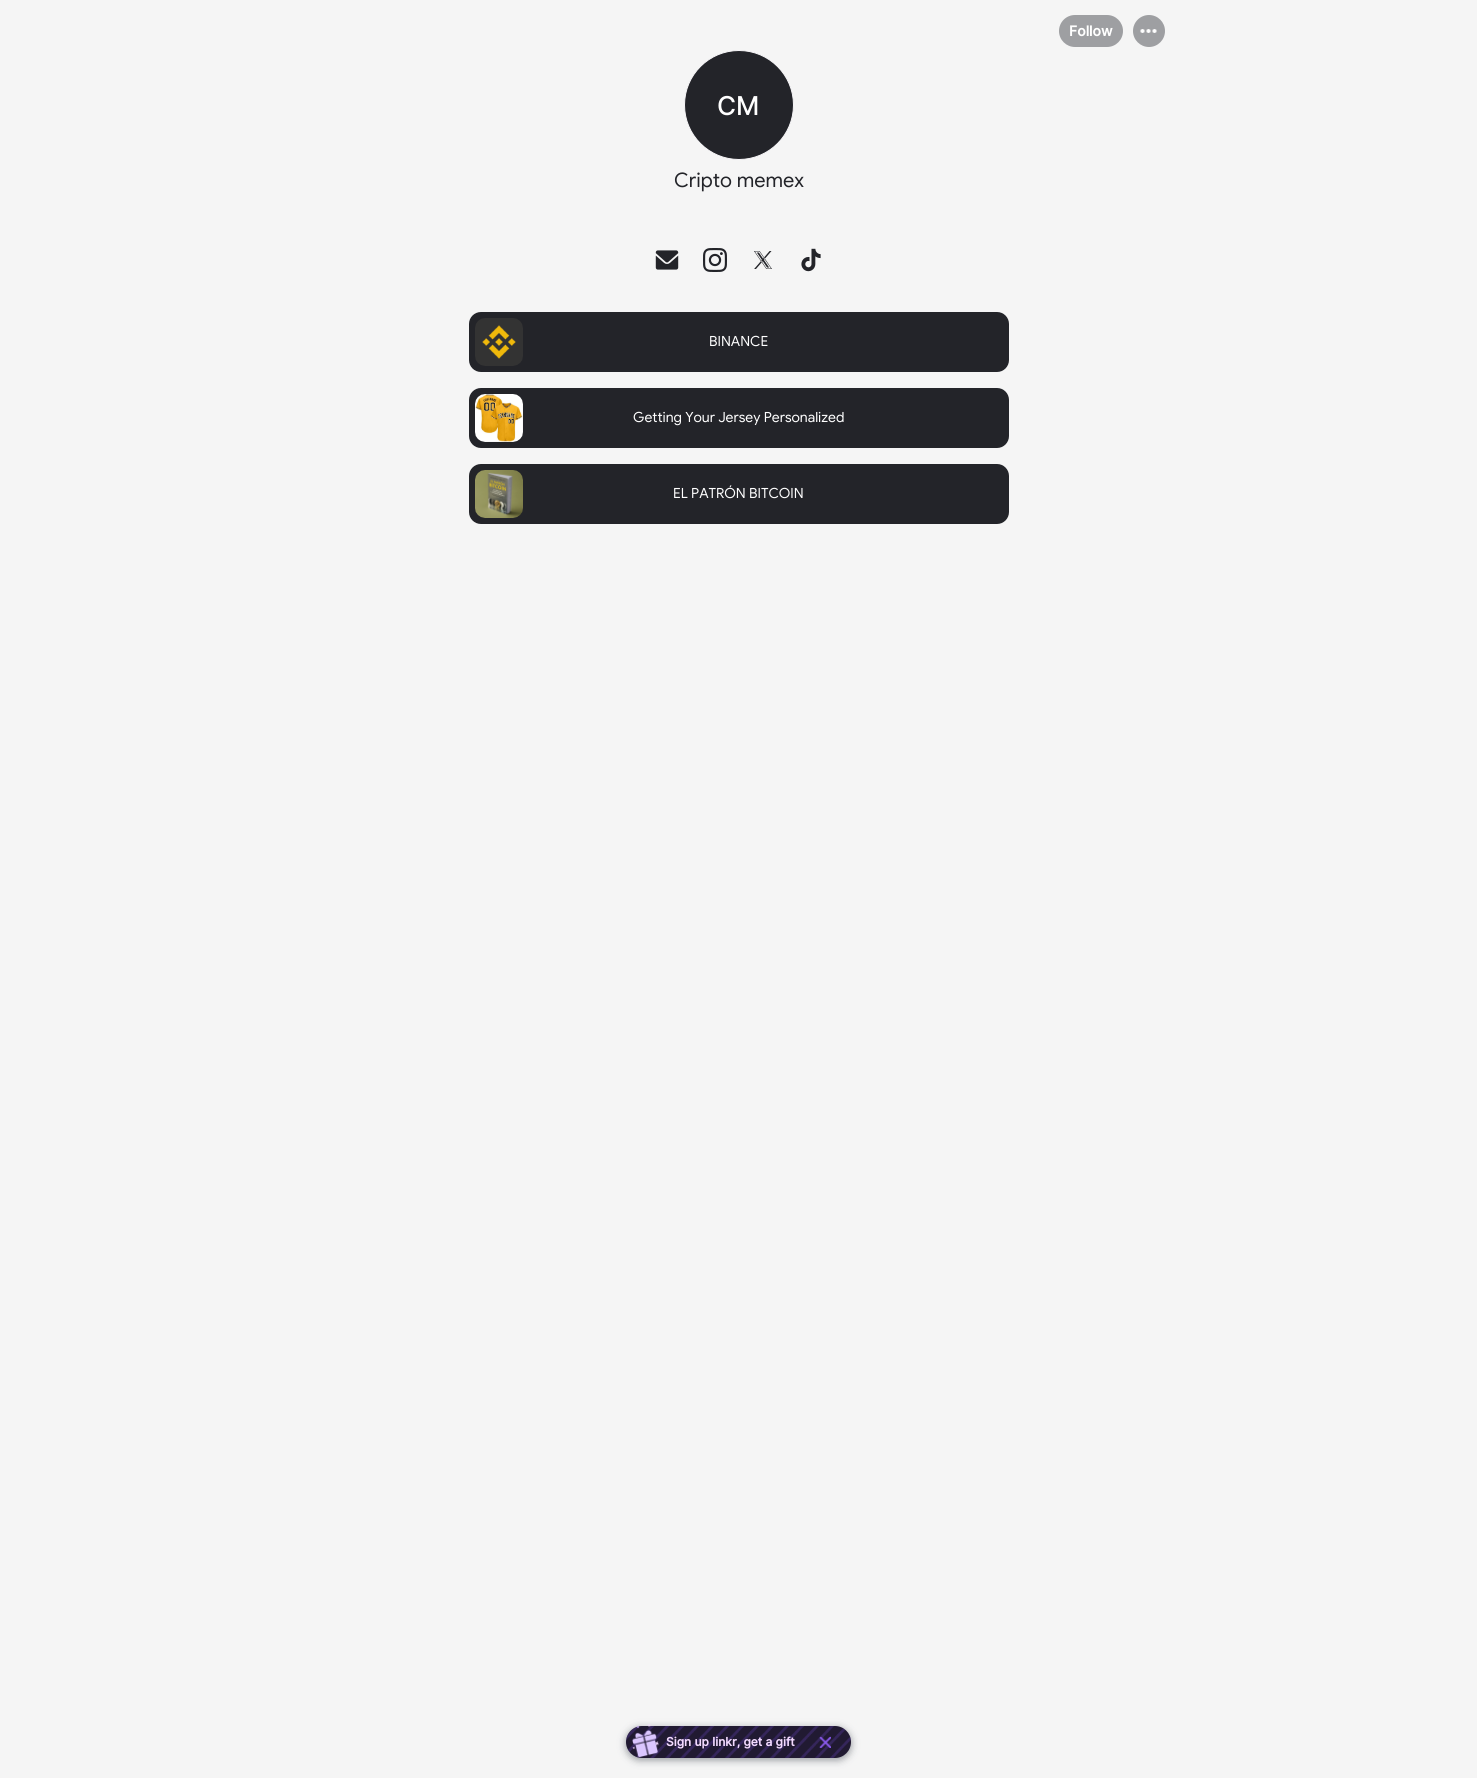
#include <cairo.h>
#include <math.h>
#include <stddef.h>


static void ink(cairo_t *ctx, unsigned color) {
    cairo_set_source_rgb(ctx, (color >> 16) / 255.0, (color >> 8 & 255) / 255.0, (color & 255) / 255.0);
}

static void round_path(cairo_t *ctx, double x, double y, double w, double h, double r) {
    cairo_new_sub_path(ctx);
    cairo_arc(ctx, x + w - r, y + h - r, r, 0, M_PI / 2);
    cairo_arc(ctx, x + r, y + h - r, r, M_PI / 2, M_PI);
    cairo_arc(ctx, x + r, y + r, r, M_PI, 1.5 * M_PI);
    cairo_arc(ctx, x + w - r, y + r, r, 1.5 * M_PI, 2 * M_PI);
    cairo_close_path(ctx);
}

static void blur_box(cairo_t *ctx, double x, double y, double w, double h, double r, double blur, double alpha) {
    cairo_push_group_with_content(ctx, CAIRO_CONTENT_ALPHA);
    cairo_set_operator(ctx, CAIRO_OPERATOR_SOURCE);
    for (int i = 15; i >= -15 && fmin(w, h) + blur * i / 3 > 0; i -= 2) {
        double e = blur * i / 6;
        cairo_set_source_rgba(ctx, 0, 0, 0, alpha * erfc((i - 1) / 8.5) / 2);
        round_path(ctx, x - e, y - e, w + 2 * e, h + 2 * e, fmax(0, fmin(r + e + blur * .6, fmin(w, h) / 2 + e)));
        cairo_fill(ctx);
    }
    cairo_pattern_t *soft = cairo_pop_group(ctx);
    cairo_mask(ctx, soft);
    cairo_pattern_destroy(soft);
}

static void paste(cairo_t *ctx, const char *path, double x, double y, double w, double h) {
    cairo_surface_t *image = cairo_image_surface_create_from_png(path);
    cairo_save(ctx);
    cairo_set_source_surface(ctx, image, x, y);
    cairo_rectangle(ctx, x, y, w, h);
    cairo_fill(ctx);
    cairo_restore(ctx);
    cairo_surface_destroy(image);
}

int main(void) {
    cairo_surface_t *surface = cairo_image_surface_create(CAIRO_FORMAT_RGB24, 1477, 1778);
    cairo_t *ctx = cairo_create(surface);
    cairo_font_options_t *options = cairo_font_options_create();
    cairo_font_options_set_hint_metrics(options, CAIRO_HINT_METRICS_OFF);
    cairo_font_options_set_hint_style(options, CAIRO_HINT_STYLE_NONE);
    cairo_set_font_options(ctx, options);
    cairo_set_miter_limit(ctx, 4);
    ink(ctx, 0xF5F5F5);
    cairo_paint(ctx);
    ink(ctx, 0x9E9FA2);
    round_path(ctx, 1059, 15, 64, 32, 16);
    cairo_fill(ctx);
    cairo_select_font_face(ctx, "Inter", CAIRO_FONT_SLANT_NORMAL, CAIRO_FONT_WEIGHT_BOLD);
    cairo_set_font_size(ctx, 14);
    ink(ctx, 0xFFFFFF);
    cairo_move_to(ctx, 1069, 36);
    cairo_show_text(ctx, "Follow");
    ink(ctx, 0x9E9FA2);
    cairo_new_path(ctx);
    cairo_arc(ctx, 1149, 31, 16, 0, 2 * M_PI);
    cairo_fill(ctx);
    paste(ctx, "media/1.png", 1140, 29, 17, 4);
    ink(ctx, 0x232429);
    cairo_arc(ctx, 739, 105, 54.5, 0, 2 * M_PI);
    cairo_fill_preserve(ctx);
    ink(ctx, 0xF7F6F8);
    cairo_set_line_width(ctx, 1);
    cairo_stroke(ctx);
    cairo_select_font_face(ctx, "Inter Medium", CAIRO_FONT_SLANT_NORMAL, CAIRO_FONT_WEIGHT_NORMAL);
    cairo_set_font_size(ctx, 26);
    ink(ctx, 0xFFFFFF);
    cairo_move_to(ctx, 717, 115);
    cairo_show_text(ctx, "CM");
    cairo_select_font_face(ctx, "Google Sans", CAIRO_FONT_SLANT_NORMAL, CAIRO_FONT_WEIGHT_NORMAL);
    cairo_set_font_size(ctx, 20);
    ink(ctx, 0x232429);
    cairo_move_to(ctx, 674, 187);
    cairo_show_text(ctx, "Cripto memex");
    paste(ctx, "media/2.png", 655, 250, 24, 20);
    paste(ctx, "media/3.png", 703, 248, 24, 24);
    paste(ctx, "media/4.png", 754, 251, 18, 18);
    paste(ctx, "media/5.png", 801, 248, 20, 24);
    round_path(ctx, 469, 312, 540, 60, 12);
    cairo_fill(ctx);
    paste(ctx, "media/6.png", 475, 318, 48, 48);
    cairo_set_font_size(ctx, 14);
    ink(ctx, 0xFFFFFF);
    cairo_move_to(ctx, 709, 346);
    cairo_show_text(ctx, "BINANCE");
    ink(ctx, 0x232429);
    round_path(ctx, 469, 388, 540, 60, 12);
    cairo_fill(ctx);
    paste(ctx, "media/7.png", 475, 394, 48, 48);
    ink(ctx, 0xFFFFFF);
    cairo_move_to(ctx, 633, 422);
    cairo_show_text(ctx, "Getting Your Jersey Personalized");
    ink(ctx, 0x232429);
    round_path(ctx, 469, 464, 540, 60, 12);
    cairo_fill(ctx);
    paste(ctx, "media/8.png", 475, 470, 48, 48);
    ink(ctx, 0xFFFFFF);
    cairo_move_to(ctx, 673, 498);
    cairo_show_text(ctx, "EL PATRÓN BITCOIN");
    ink(ctx, 0x343B46);
    blur_box(ctx, 626, 1728, 225, 32, 16, 4, 0.5);
    ink(ctx, 0x211A32);
    round_path(ctx, 626, 1726, 225, 32, 16);
    cairo_fill(ctx);
    paste(ctx, "media/9.png", 626, 1726, 225, 32);
    paste(ctx, "media/10.png", 632, 1724, 27, 26);
    paste(ctx, "media/11.png", 632, 1730, 27, 28);
    cairo_select_font_face(ctx, "Inter", CAIRO_FONT_SLANT_NORMAL, CAIRO_FONT_WEIGHT_BOLD);
    cairo_set_font_size(ctx, 12);
    ink(ctx, 0xF3DAFF);
    cairo_move_to(ctx, 666, 1746);
    cairo_show_text(ctx, "Sign up linkr, get a gift");
    paste(ctx, "media/12.png", 819, 1736, 12, 12);
    cairo_surface_write_to_png(surface, "image.png");
    cairo_font_options_destroy(options);
    cairo_destroy(ctx);
    cairo_surface_destroy(surface);
    return 0;
}
